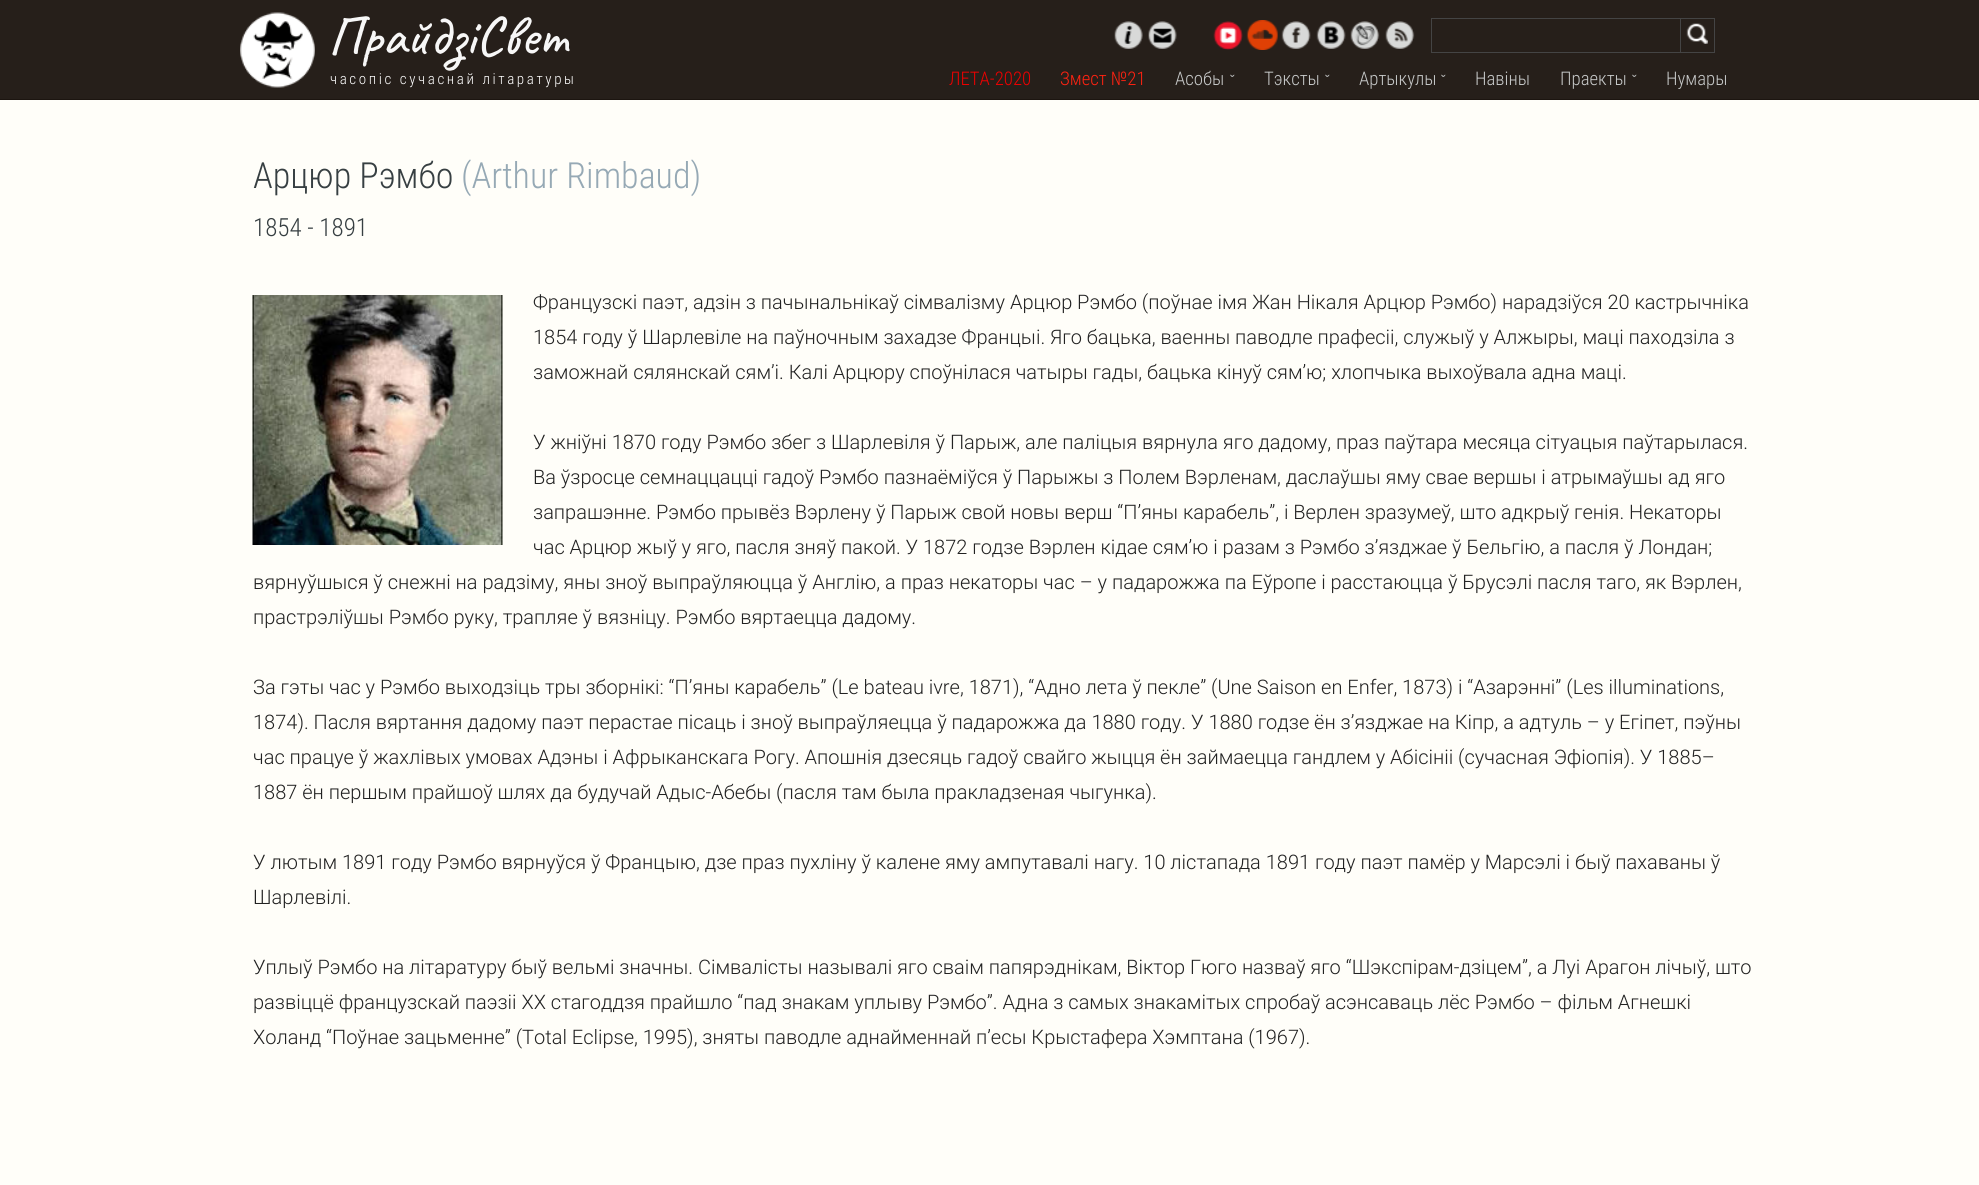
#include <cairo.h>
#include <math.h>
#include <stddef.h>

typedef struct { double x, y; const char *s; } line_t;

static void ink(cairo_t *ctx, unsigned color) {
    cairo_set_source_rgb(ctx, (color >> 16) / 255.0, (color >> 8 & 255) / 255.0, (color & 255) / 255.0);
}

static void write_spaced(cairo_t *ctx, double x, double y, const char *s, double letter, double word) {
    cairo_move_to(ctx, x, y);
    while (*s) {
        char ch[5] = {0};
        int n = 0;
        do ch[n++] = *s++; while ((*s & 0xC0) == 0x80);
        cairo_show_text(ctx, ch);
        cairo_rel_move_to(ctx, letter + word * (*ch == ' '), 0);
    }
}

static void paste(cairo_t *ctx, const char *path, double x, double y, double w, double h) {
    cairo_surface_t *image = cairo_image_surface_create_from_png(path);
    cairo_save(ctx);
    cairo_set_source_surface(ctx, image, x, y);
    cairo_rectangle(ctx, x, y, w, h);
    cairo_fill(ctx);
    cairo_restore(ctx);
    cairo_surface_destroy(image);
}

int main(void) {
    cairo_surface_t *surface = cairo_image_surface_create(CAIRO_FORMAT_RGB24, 1979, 1185);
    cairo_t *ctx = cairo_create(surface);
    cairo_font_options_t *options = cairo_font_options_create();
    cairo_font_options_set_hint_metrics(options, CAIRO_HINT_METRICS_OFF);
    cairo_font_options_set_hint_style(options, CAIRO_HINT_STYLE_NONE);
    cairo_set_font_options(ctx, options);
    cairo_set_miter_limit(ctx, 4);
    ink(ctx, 0xFFFEF9);
    cairo_paint(ctx);
    ink(ctx, 0x261F1A);
    cairo_rectangle(ctx, 0, 0, 1979, 99);
    cairo_fill(ctx);
    ink(ctx, 0x1C1510);
    cairo_rectangle(ctx, 0, 99, 1979, 1);
    cairo_fill(ctx);
    paste(ctx, "media/1.png", 240, 12, 75, 76);
    cairo_select_font_face(ctx, "Caveat Medium", CAIRO_FONT_SLANT_NORMAL, CAIRO_FONT_WEIGHT_NORMAL);
    cairo_set_font_size(ctx, 55);
    ink(ctx, 0xF7F7F7);
    cairo_move_to(ctx, 328, 54);
    cairo_show_text(ctx, "ПрайдзіСвет");
    paste(ctx, "media/2.png", 1114, 21, 29, 28);
    paste(ctx, "media/3.png", 1148, 21, 29, 28);
    paste(ctx, "media/4.png", 1213, 21, 30, 29);
    paste(ctx, "media/5.png", 1246, 20, 32, 30);
    paste(ctx, "media/6.png", 1281, 21, 30, 28);
    paste(ctx, "media/7.png", 1316, 21, 30, 28);
    paste(ctx, "media/8.png", 1350, 21, 30, 28);
    paste(ctx, "media/9.png", 1385, 21, 30, 28);
    cairo_rectangle(ctx, 1680.5, 18.5, 34, 34);
    ink(ctx, 0x444444);
    cairo_set_line_width(ctx, 1);
    cairo_stroke(ctx);
    cairo_rectangle(ctx, 1431.5, 18.5, 249, 34);
    cairo_stroke(ctx);
    paste(ctx, "media/10.png", 1686, 23, 22, 21);
    cairo_select_font_face(ctx, "Roboto Condensed Light", CAIRO_FONT_SLANT_NORMAL, CAIRO_FONT_WEIGHT_NORMAL);
    cairo_set_font_size(ctx, 15);
    ink(ctx, 0xFFFFFF);
    write_spaced(ctx, 330, 84, "часопіс сучаснай літаратуры", 2.6, 0);
    cairo_set_font_size(ctx, 18.75);
    ink(ctx, 0xEE0000);
    cairo_move_to(ctx, 949, 85);
    cairo_show_text(ctx, "ЛЕТА-2020");
    ink(ctx, 0xFF2211);
    cairo_move_to(ctx, 1060, 85);
    cairo_show_text(ctx, "Змест №21");
    ink(ctx, 0xC6C8C8);
    cairo_move_to(ctx, 1175, 85);
    cairo_show_text(ctx, "Асобы");
    cairo_select_font_face(ctx, "Liberation Sans", CAIRO_FONT_SLANT_NORMAL, CAIRO_FONT_WEIGHT_NORMAL);
    cairo_set_font_size(ctx, 14);
    cairo_move_to(ctx, 1230, 85);
    cairo_show_text(ctx, "ˇ");
    cairo_select_font_face(ctx, "Roboto Condensed Light", CAIRO_FONT_SLANT_NORMAL, CAIRO_FONT_WEIGHT_NORMAL);
    cairo_set_font_size(ctx, 18.75);
    cairo_move_to(ctx, 1264, 85);
    cairo_show_text(ctx, "Тэксты");
    cairo_select_font_face(ctx, "Liberation Sans", CAIRO_FONT_SLANT_NORMAL, CAIRO_FONT_WEIGHT_NORMAL);
    cairo_set_font_size(ctx, 14);
    cairo_move_to(ctx, 1325, 85);
    cairo_show_text(ctx, "ˇ");
    cairo_select_font_face(ctx, "Roboto Condensed Light", CAIRO_FONT_SLANT_NORMAL, CAIRO_FONT_WEIGHT_NORMAL);
    cairo_set_font_size(ctx, 18.75);
    cairo_move_to(ctx, 1359, 85);
    cairo_show_text(ctx, "Артыкулы");
    cairo_select_font_face(ctx, "Liberation Sans", CAIRO_FONT_SLANT_NORMAL, CAIRO_FONT_WEIGHT_NORMAL);
    cairo_set_font_size(ctx, 14);
    cairo_move_to(ctx, 1441, 85);
    cairo_show_text(ctx, "ˇ");
    cairo_select_font_face(ctx, "Roboto Condensed Light", CAIRO_FONT_SLANT_NORMAL, CAIRO_FONT_WEIGHT_NORMAL);
    cairo_set_font_size(ctx, 18.75);
    cairo_move_to(ctx, 1475, 85);
    cairo_show_text(ctx, "Навіны");
    cairo_move_to(ctx, 1560, 85);
    cairo_show_text(ctx, "Праекты");
    cairo_select_font_face(ctx, "Liberation Sans", CAIRO_FONT_SLANT_NORMAL, CAIRO_FONT_WEIGHT_NORMAL);
    cairo_set_font_size(ctx, 14);
    cairo_move_to(ctx, 1632, 85);
    cairo_show_text(ctx, "ˇ");
    cairo_select_font_face(ctx, "Roboto Condensed Light", CAIRO_FONT_SLANT_NORMAL, CAIRO_FONT_WEIGHT_NORMAL);
    cairo_set_font_size(ctx, 18.75);
    cairo_move_to(ctx, 1666, 85);
    cairo_show_text(ctx, "Нумары");
    cairo_set_font_size(ctx, 36);
    ink(ctx, 0x373F42);
    cairo_move_to(ctx, 253, 188);
    cairo_show_text(ctx, "Арцюр Рэмбо");
    ink(ctx, 0x96A9B5);
    cairo_move_to(ctx, 461, 188);
    cairo_show_text(ctx, "(Arthur Rimbaud)");
    cairo_set_font_size(ctx, 25);
    ink(ctx, 0x373F42);
    cairo_move_to(ctx, 253, 236);
    cairo_show_text(ctx, "1854 - 1891");
    paste(ctx, "media/11.png", 252, 295, 251, 250);
    cairo_select_font_face(ctx, "Roboto Light", CAIRO_FONT_SLANT_NORMAL, CAIRO_FONT_WEIGHT_NORMAL);
    cairo_set_font_size(ctx, 20);
    ink(ctx, 0x222222);
    {
        static const line_t items[] = {
            {533, 309, "Французскі паэт, адзін з пачынальнікаў сімвалізму Арцюр Рэмбо (поўнае імя Жан Нікаля Арцюр Рэмбо) нарадзіўся 20 кастрычніка"},
            {533, 344, "1854 году ў Шарлевіле на паўночным захадзе Францыі. Яго бацька, ваенны паводле прафесіі, служыў у Алжыры, маці паходзіла з"},
            {533, 379, "заможнай сялянскай сям’і. Калі Арцюру споўнілася чатыры гады, бацька кінуў сям’ю; хлопчыка выхоўвала адна маці."},
            {533, 449, "У жніўні 1870 году Рэмбо збег з Шарлевіля ў Парыж, але паліцыя вярнула яго дадому, праз паўтара месяца сітуацыя паўтарылася."},
            {533, 484, "Ва ўзросце семнаццацці гадоў Рэмбо пазнаёміўся ў Парыжы з Полем Вэрленам, даслаўшы яму свае вершы і атрымаўшы ад яго"},
            {533, 519, "запрашэнне. Рэмбо прывёз Вэрлену ў Парыж свой новы верш “П’яны карабель”, і Верлен зразумеў, што адкрыў генія. Некаторы"},
            {533, 554, "час Арцюр жыў у яго, пасля зняў пакой. У 1872 годзе Вэрлен кідае сям’ю і разам з Рэмбо з’язджае ў Бельгію, а пасля ў Лондан;"},
            {253, 589, "вярнуўшыся ў снежні на радзіму, яны зноў выпраўляюцца ў Англію, а праз некаторы час – у падарожжа па Еўропе і расстаюцца ў Брусэлі пасля таго, як Вэрлен,"},
            {253, 624, "прастрэліўшы Рэмбо руку, трапляе ў вязніцу. Рэмбо вяртаецца дадому."},
            {253, 694, "За гэты час у Рэмбо выходзіць тры зборнікі: “П’яны карабель” (Le bateau ivre, 1871), “Адно лета ў пекле” (Une Saison en Enfer, 1873) і “Азарэнні” (Les illuminations,"},
            {253, 729, "1874). Пасля вяртання дадому паэт перастае пісаць і зноў выпраўляецца ў падарожжа да 1880 году. У 1880 годзе ён з’язджае на Кіпр, а адтуль – у Егіпет, пэўны"},
            {253, 764, "час працуе ў жахлівых умовах Адэны і Афрыканскага Рогу. Апошнія дзесяць гадоў свайго жыцця ён займаецца гандлем у Абісініі (сучасная Эфіопія). У 1885–"},
            {253, 799, "1887 ён першым прайшоў шлях да будучай Адыс-Абебы (пасля там была пракладзеная чыгунка)."},
            {253, 869, "У лютым 1891 году Рэмбо вярнуўся ў Францыю, дзе праз пухліну ў калене яму ампутавалі нагу. 10 лістапада 1891 году паэт памёр у Марсэлі і быў пахаваны ў"},
            {253, 904, "Шарлевілі."},
            {253, 974, "Уплыў Рэмбо на літаратуру быў вельмі значны. Сімвалісты называлі яго сваім папярэднікам, Віктор Гюго назваў яго “Шэкспірам-дзіцем”, а Луі Арагон лічыў, што"},
            {253, 1009, "развіццё французскай паэзіі ХХ стагоддзя прайшло “пад знакам уплыву Рэмбо”. Адна з самых знакамітых спробаў асэнсаваць лёс Рэмбо – фільм Агнешкі"},
            {253, 1044, "Холанд “Поўнае зацьменне” (Total Eclipse, 1995), зняты паводле аднайменнай п’есы Крыстафера Хэмптана (1967)."},
        };
        for (size_t i = 0; i < sizeof items / sizeof *items; i++) {
            cairo_move_to(ctx, items[i].x, items[i].y);
            cairo_show_text(ctx, items[i].s);
        }
    }
    cairo_surface_write_to_png(surface, "image.png");
    cairo_font_options_destroy(options);
    cairo_destroy(ctx);
    cairo_surface_destroy(surface);
    return 0;
}
